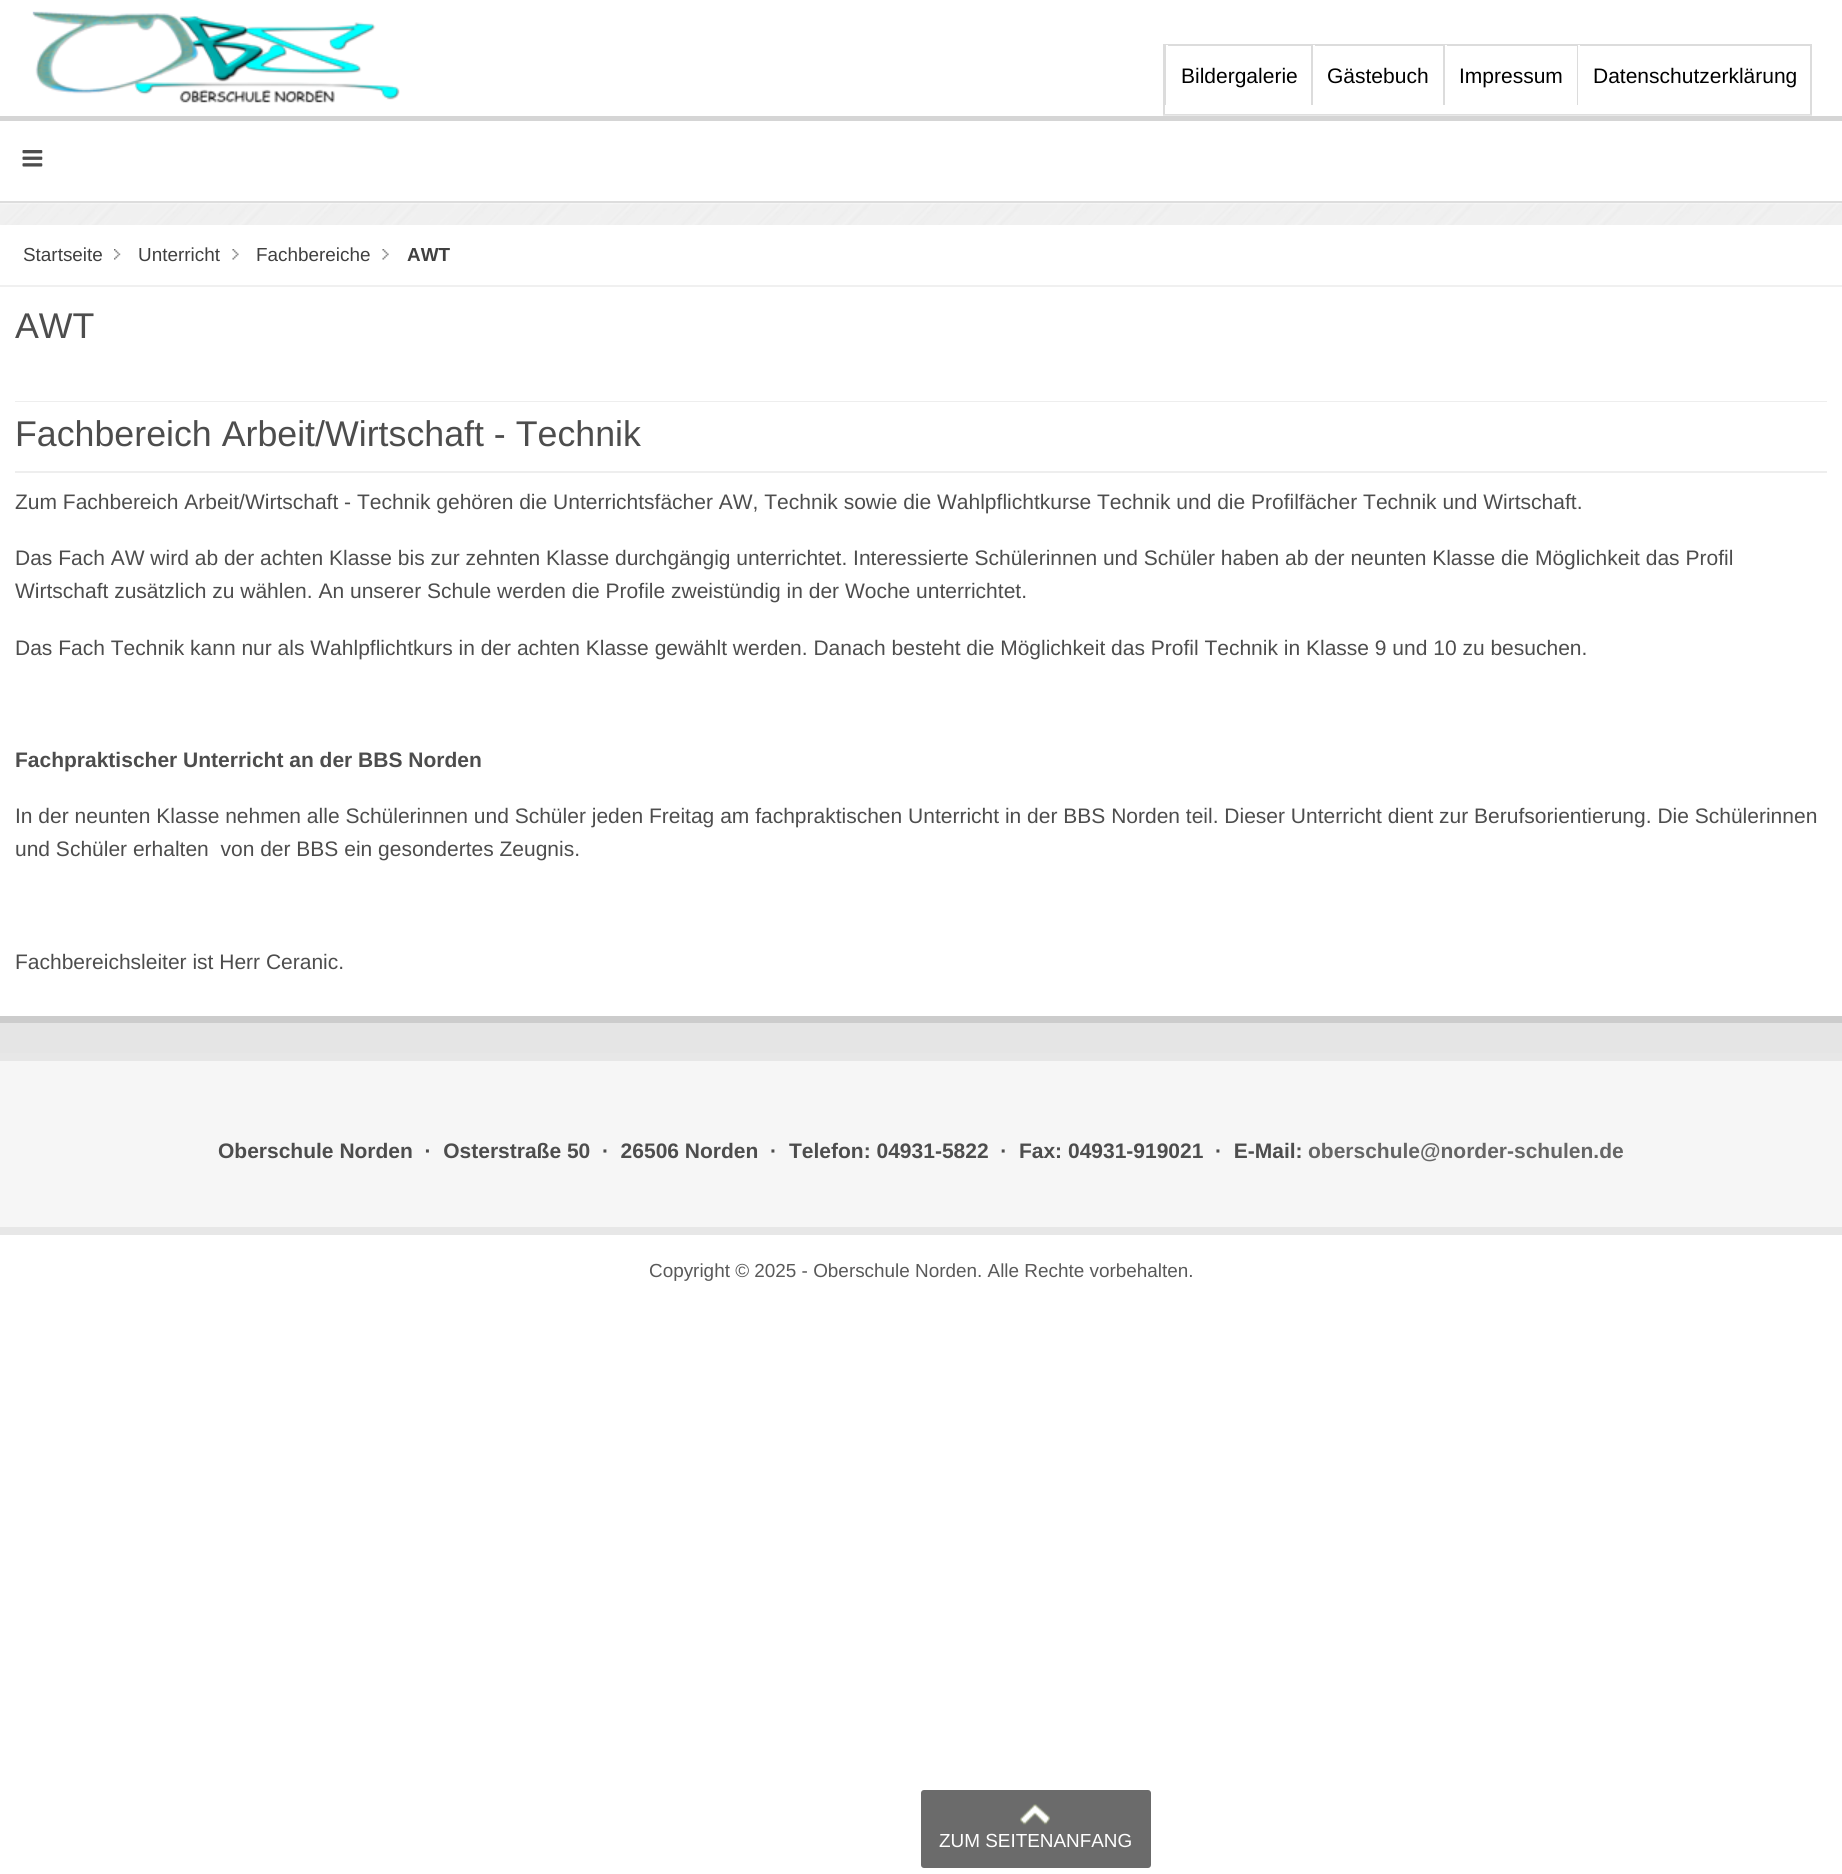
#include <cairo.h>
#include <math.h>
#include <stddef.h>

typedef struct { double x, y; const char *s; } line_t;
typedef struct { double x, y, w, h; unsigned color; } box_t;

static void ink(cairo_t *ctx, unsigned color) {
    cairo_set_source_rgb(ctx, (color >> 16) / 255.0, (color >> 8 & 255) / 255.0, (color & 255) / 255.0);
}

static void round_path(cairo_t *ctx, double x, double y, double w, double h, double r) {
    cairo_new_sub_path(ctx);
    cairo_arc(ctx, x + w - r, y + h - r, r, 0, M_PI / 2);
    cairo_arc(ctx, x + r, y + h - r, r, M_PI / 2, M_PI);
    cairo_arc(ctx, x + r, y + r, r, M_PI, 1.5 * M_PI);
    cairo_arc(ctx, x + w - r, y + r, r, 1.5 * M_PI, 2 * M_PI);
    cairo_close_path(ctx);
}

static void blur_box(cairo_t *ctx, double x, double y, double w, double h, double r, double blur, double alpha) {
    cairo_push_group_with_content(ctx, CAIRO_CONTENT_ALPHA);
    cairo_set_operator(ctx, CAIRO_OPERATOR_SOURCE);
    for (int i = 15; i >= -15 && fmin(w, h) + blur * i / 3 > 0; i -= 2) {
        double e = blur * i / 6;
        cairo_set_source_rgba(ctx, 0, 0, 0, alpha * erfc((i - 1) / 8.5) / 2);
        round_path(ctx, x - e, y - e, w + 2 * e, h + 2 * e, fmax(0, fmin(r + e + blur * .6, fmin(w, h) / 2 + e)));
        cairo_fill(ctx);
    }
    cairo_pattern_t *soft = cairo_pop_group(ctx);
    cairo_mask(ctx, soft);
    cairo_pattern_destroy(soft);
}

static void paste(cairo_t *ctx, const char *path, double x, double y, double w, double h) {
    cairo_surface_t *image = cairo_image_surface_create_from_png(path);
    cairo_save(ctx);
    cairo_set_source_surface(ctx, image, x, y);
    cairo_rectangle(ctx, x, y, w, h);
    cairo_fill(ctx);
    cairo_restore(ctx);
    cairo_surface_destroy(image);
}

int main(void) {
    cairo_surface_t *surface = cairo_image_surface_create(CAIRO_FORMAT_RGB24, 1842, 1874);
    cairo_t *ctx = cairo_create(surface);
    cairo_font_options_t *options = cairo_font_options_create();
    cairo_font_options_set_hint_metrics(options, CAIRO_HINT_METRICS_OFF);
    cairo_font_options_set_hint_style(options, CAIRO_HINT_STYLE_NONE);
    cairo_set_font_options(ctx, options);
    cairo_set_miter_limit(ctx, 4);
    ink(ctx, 0xFFFFFF);
    cairo_paint(ctx);
    paste(ctx, "media/1.png", 32, 11, 368, 92);
    cairo_rectangle(ctx, 1164, 45, 647, 70);
    ink(ctx, 0xDCDCDC);
    cairo_stroke(ctx);
    cairo_rectangle(ctx, 1165, 45, 1, 60);
    cairo_fill(ctx);
    ink(ctx, 0xFFFFFF);
    cairo_rectangle(ctx, 1166, 45, 2, 1);
    cairo_fill(ctx);
    cairo_select_font_face(ctx, "Liberation Sans", CAIRO_FONT_SLANT_NORMAL, CAIRO_FONT_WEIGHT_NORMAL);
    cairo_set_font_size(ctx, 21);
    ink(ctx, 0x000000);
    cairo_move_to(ctx, 1181, 83);
    cairo_show_text(ctx, "Bildergalerie");
    ink(ctx, 0xDCDCDC);
    cairo_rectangle(ctx, 1311, 45, 2, 60);
    cairo_fill(ctx);
    ink(ctx, 0xFFFFFF);
    cairo_rectangle(ctx, 1313, 45, 2, 1);
    cairo_fill(ctx);
    ink(ctx, 0x000000);
    cairo_move_to(ctx, 1327, 83);
    cairo_show_text(ctx, "Gästebuch");
    ink(ctx, 0xDCDCDC);
    cairo_rectangle(ctx, 1443, 45, 2, 60);
    cairo_fill(ctx);
    ink(ctx, 0xFFFFFF);
    cairo_rectangle(ctx, 1445, 45, 2, 1);
    cairo_fill(ctx);
    ink(ctx, 0x000000);
    cairo_move_to(ctx, 1459, 83);
    cairo_show_text(ctx, "Impressum");
    ink(ctx, 0xDCDCDC);
    cairo_rectangle(ctx, 1577, 45, 1, 60);
    cairo_fill(ctx);
    ink(ctx, 0xFFFFFF);
    cairo_rectangle(ctx, 1578, 45, 2, 1);
    cairo_fill(ctx);
    ink(ctx, 0x000000);
    cairo_move_to(ctx, 1593, 83);
    cairo_show_text(ctx, "Datenschutzerklärung");
    paste(ctx, "media/3.png", 0, 203, 1842, 22);
    ink(ctx, 0xFFFFFF);
    blur_box(ctx, 0, 116, 1842, 87, 0, 1, 1);
    ink(ctx, 0xD5D5D5);
    cairo_rectangle(ctx, 0, 116, 1842, 5);
    cairo_fill(ctx);
    ink(ctx, 0xDDDDDD);
    cairo_rectangle(ctx, 0, 201, 1842, 2);
    cairo_fill(ctx);
    paste(ctx, "media/2.png", 22, 150, 21, 17);
    {
        static const box_t items[] = {
            {0, 1023, 1842, 30, 0xE5E5E5},
            {0, 1016, 1842, 7, 0xCCCCCC},
            {0, 285, 1842, 2, 0xF0F0F0},
        };
        for (size_t i = 0; i < sizeof items / sizeof *items; i++) {
            ink(ctx, items[i].color);
            cairo_rectangle(ctx, items[i].x, items[i].y, items[i].w, items[i].h);
            cairo_fill(ctx);
        }
    }
    cairo_set_font_size(ctx, 18.9);
    ink(ctx, 0x404040);
    cairo_move_to(ctx, 23, 261);
    cairo_show_text(ctx, "Startseite");
    paste(ctx, "media/4.png", 114, 249, 7, 11);
    cairo_move_to(ctx, 138, 261);
    cairo_show_text(ctx, "Unterricht");
    paste(ctx, "media/5.png", 232, 249, 7, 11);
    cairo_move_to(ctx, 256, 261);
    cairo_show_text(ctx, "Fachbereiche");
    paste(ctx, "media/6.png", 382, 249, 7, 11);
    cairo_select_font_face(ctx, "Liberation Sans", CAIRO_FONT_SLANT_NORMAL, CAIRO_FONT_WEIGHT_BOLD);
    cairo_move_to(ctx, 407, 261);
    cairo_show_text(ctx, "AWT");
    cairo_select_font_face(ctx, "Liberation Sans", CAIRO_FONT_SLANT_NORMAL, CAIRO_FONT_WEIGHT_NORMAL);
    cairo_set_font_size(ctx, 35.75);
    ink(ctx, 0x4D4D4D);
    cairo_move_to(ctx, 15, 338);
    cairo_show_text(ctx, "AWT");
    ink(ctx, 0xEEEEEE);
    cairo_rectangle(ctx, 15, 401, 1812, 1);
    cairo_fill(ctx);
    ink(ctx, 0x4D4D4D);
    cairo_move_to(ctx, 15, 446);
    cairo_show_text(ctx, "Fachbereich Arbeit/Wirtschaft - Technik");
    ink(ctx, 0xEEEEEE);
    cairo_rectangle(ctx, 15, 471, 1812, 2);
    cairo_fill(ctx);
    cairo_set_font_size(ctx, 21);
    ink(ctx, 0x4D4D4D);
    {
        static const line_t items[] = {
            {15, 509, "Zum Fachbereich Arbeit/Wirtschaft - Technik gehören die Unterrichtsfächer AW, Technik sowie die Wahlpflichtkurse Technik und die Profilfächer Technik und Wirtschaft."},
            {15, 565, "Das Fach AW wird ab der achten Klasse bis zur zehnten Klasse durchgängig unterrichtet. Interessierte Schülerinnen und Schüler haben ab der neunten Klasse die Möglichkeit das Profil"},
            {15, 598, "Wirtschaft zusätzlich zu wählen. An unserer Schule werden die Profile zweistündig in der Woche unterrichtet."},
            {15, 655, "Das Fach Technik kann nur als Wahlpflichtkurs in der achten Klasse gewählt werden. Danach besteht die Möglichkeit das Profil Technik in Klasse 9 und 10 zu besuchen."},
        };
        for (size_t i = 0; i < sizeof items / sizeof *items; i++) {
            cairo_move_to(ctx, items[i].x, items[i].y);
            cairo_show_text(ctx, items[i].s);
        }
    }
    cairo_select_font_face(ctx, "Liberation Sans", CAIRO_FONT_SLANT_NORMAL, CAIRO_FONT_WEIGHT_BOLD);
    cairo_move_to(ctx, 15, 767);
    cairo_show_text(ctx, "Fachpraktischer Unterricht an der BBS Norden");
    cairo_select_font_face(ctx, "Liberation Sans", CAIRO_FONT_SLANT_NORMAL, CAIRO_FONT_WEIGHT_NORMAL);
    {
        static const line_t items[] = {
            {15, 823, "In der neunten Klasse nehmen alle Schülerinnen und Schüler jeden Freitag am fachpraktischen Unterricht in der BBS Norden teil. Dieser Unterricht dient zur Berufsorientierung. Die Schülerinnen"},
            {15, 856, "und Schüler erhalten  von der BBS ein gesondertes Zeugnis."},
            {15, 969, "Fachbereichsleiter ist Herr Ceranic."},
        };
        for (size_t i = 0; i < sizeof items / sizeof *items; i++) {
            cairo_move_to(ctx, items[i].x, items[i].y);
            cairo_show_text(ctx, items[i].s);
        }
    }
    {
        static const box_t items[] = {
            {0, 1061, 1842, 166, 0xF6F6F6},
            {0, 1053, 1842, 8, 0xE7E7E7},
            {0, 1227, 1842, 8, 0xE7E7E7},
        };
        for (size_t i = 0; i < sizeof items / sizeof *items; i++) {
            ink(ctx, items[i].color);
            cairo_rectangle(ctx, items[i].x, items[i].y, items[i].w, items[i].h);
            cairo_fill(ctx);
        }
    }
    cairo_select_font_face(ctx, "Liberation Sans", CAIRO_FONT_SLANT_NORMAL, CAIRO_FONT_WEIGHT_BOLD);
    ink(ctx, 0x4D4D4D);
    cairo_move_to(ctx, 218, 1158);
    cairo_show_text(ctx, "Oberschule Norden  ·  Osterstraße 50  ·  26506 Norden  ·");
    cairo_move_to(ctx, 789, 1158);
    cairo_show_text(ctx, "Telefon: 04931-5822  ·  Fax: 04931-919021  ·  E-Mail:");
    ink(ctx, 0x666666);
    cairo_move_to(ctx, 1308, 1158);
    cairo_show_text(ctx, "oberschule@norder-schulen.de");
    cairo_select_font_face(ctx, "Liberation Sans", CAIRO_FONT_SLANT_NORMAL, CAIRO_FONT_WEIGHT_NORMAL);
    cairo_set_font_size(ctx, 18.9);
    ink(ctx, 0x595959);
    cairo_move_to(ctx, 649, 1277);
    cairo_show_text(ctx, "Copyright © 2025 - Oberschule Norden. Alle Rechte vorbehalten.");
    ink(ctx, 0x6B6B6B);
    round_path(ctx, 921, 1790, 230, 78, 3);
    cairo_fill(ctx);
    paste(ctx, "media/7.png", 1020, 1804, 30, 21);
    ink(ctx, 0xFFFFFF);
    cairo_move_to(ctx, 939, 1847);
    cairo_show_text(ctx, "ZUM SEITENANFANG");
    cairo_surface_write_to_png(surface, "image.png");
    cairo_font_options_destroy(options);
    cairo_destroy(ctx);
    cairo_surface_destroy(surface);
    return 0;
}
